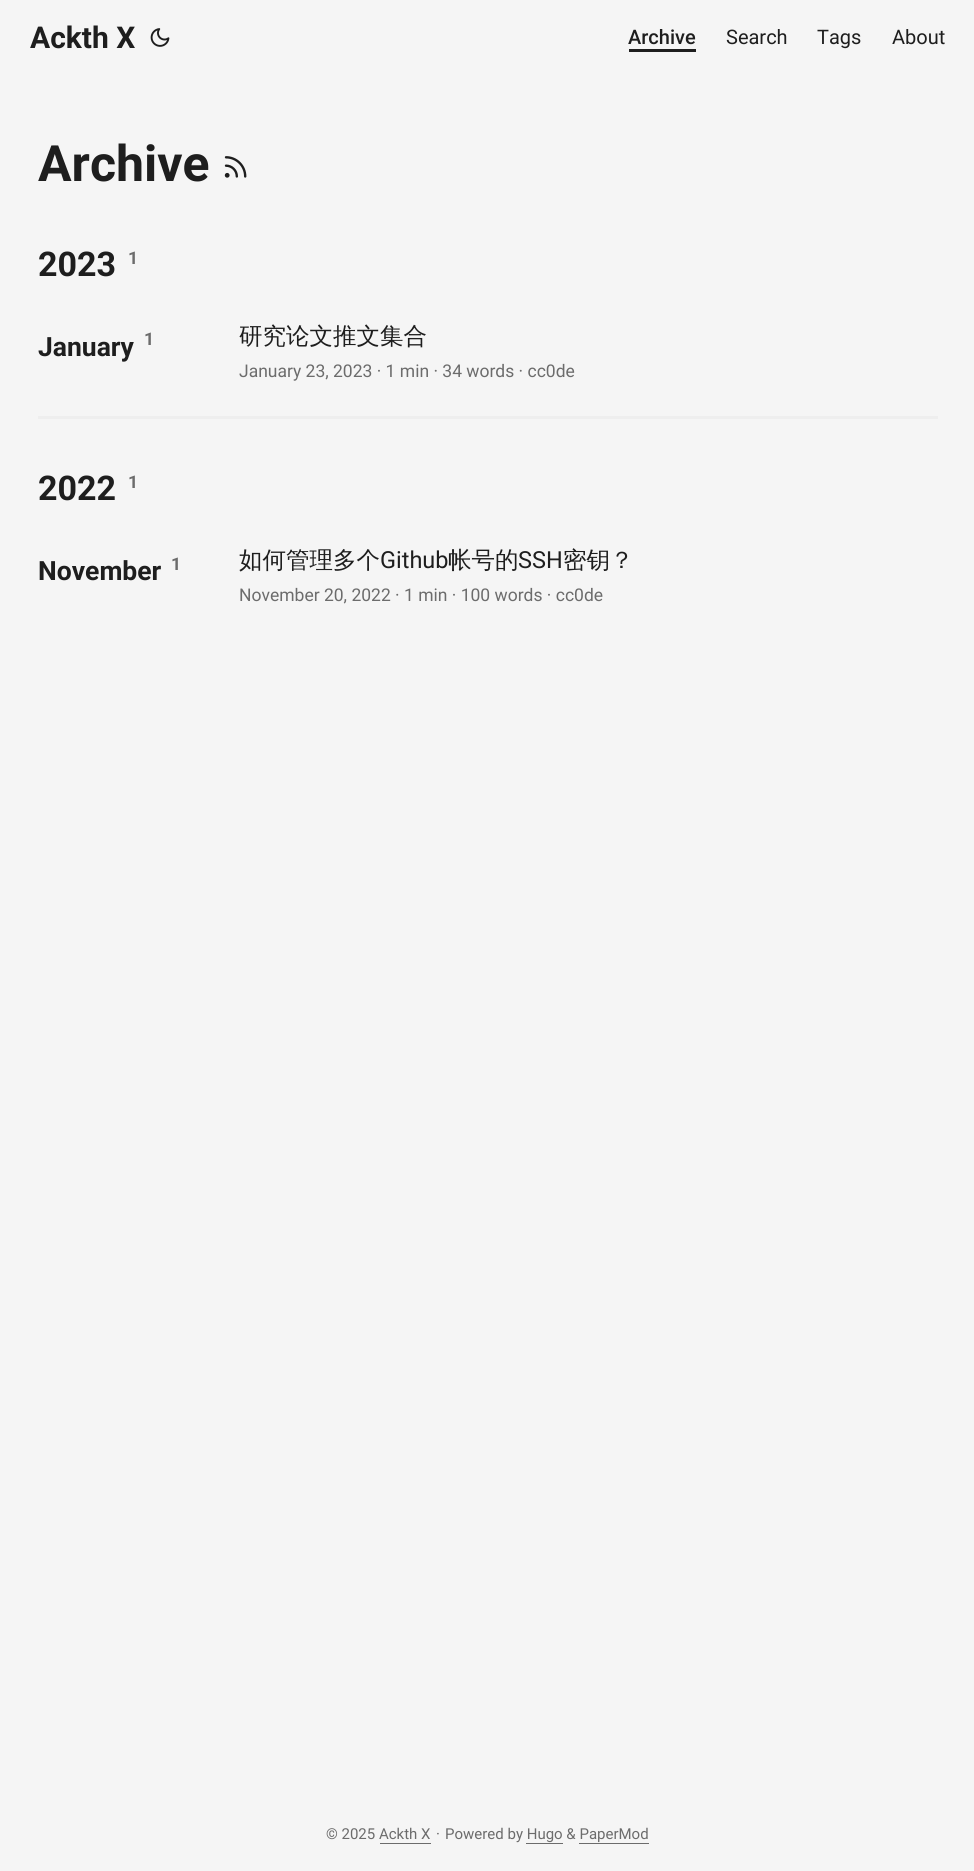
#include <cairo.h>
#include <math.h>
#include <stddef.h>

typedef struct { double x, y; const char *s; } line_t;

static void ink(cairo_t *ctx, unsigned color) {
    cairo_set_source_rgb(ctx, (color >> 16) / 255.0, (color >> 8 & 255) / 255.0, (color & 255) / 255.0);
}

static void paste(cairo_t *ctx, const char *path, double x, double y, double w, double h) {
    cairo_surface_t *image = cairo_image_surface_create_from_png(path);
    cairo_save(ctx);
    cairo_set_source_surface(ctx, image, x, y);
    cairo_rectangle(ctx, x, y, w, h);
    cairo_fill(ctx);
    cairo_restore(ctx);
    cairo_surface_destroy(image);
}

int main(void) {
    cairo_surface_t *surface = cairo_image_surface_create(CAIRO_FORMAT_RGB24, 974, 1871);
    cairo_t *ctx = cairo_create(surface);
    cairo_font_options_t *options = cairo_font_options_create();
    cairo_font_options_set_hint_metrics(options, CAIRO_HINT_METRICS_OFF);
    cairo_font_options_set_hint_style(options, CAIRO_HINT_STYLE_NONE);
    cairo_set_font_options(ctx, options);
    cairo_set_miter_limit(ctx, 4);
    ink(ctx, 0xF5F5F5);
    cairo_paint(ctx);
    cairo_select_font_face(ctx, "Roboto", CAIRO_FONT_SLANT_NORMAL, CAIRO_FONT_WEIGHT_BOLD);
    cairo_set_font_size(ctx, 30);
    ink(ctx, 0x1E1E1E);
    cairo_move_to(ctx, 30, 48);
    cairo_show_text(ctx, "Ackth X");
    paste(ctx, "media/1.png", 150, 28, 20, 19);
    cairo_select_font_face(ctx, "Roboto Medium", CAIRO_FONT_SLANT_NORMAL, CAIRO_FONT_WEIGHT_NORMAL);
    cairo_set_font_size(ctx, 20);
    cairo_move_to(ctx, 628, 44);
    cairo_show_text(ctx, "Archive");
    cairo_rectangle(ctx, 629, 49, 67, 3);
    cairo_fill(ctx);
    cairo_select_font_face(ctx, "Roboto", CAIRO_FONT_SLANT_NORMAL, CAIRO_FONT_WEIGHT_NORMAL);
    {
        static const line_t items[] = {
            {726, 44, "Search"},
            {817, 44, "Tags"},
            {892, 44, "About"},
        };
        for (size_t i = 0; i < sizeof items / sizeof *items; i++) {
            cairo_move_to(ctx, items[i].x, items[i].y);
            cairo_show_text(ctx, items[i].s);
        }
    }
    cairo_select_font_face(ctx, "Roboto", CAIRO_FONT_SLANT_NORMAL, CAIRO_FONT_WEIGHT_BOLD);
    cairo_set_font_size(ctx, 50);
    cairo_move_to(ctx, 38, 181);
    cairo_show_text(ctx, "Archive");
    paste(ctx, "media/2.png", 224, 156, 23, 22);
    ink(ctx, 0xEEEEEE);
    cairo_rectangle(ctx, 38, 416, 900, 3);
    cairo_fill(ctx);
    cairo_set_font_size(ctx, 34);
    ink(ctx, 0x1E1E1E);
    cairo_move_to(ctx, 38, 276);
    cairo_show_text(ctx, "2023");
    cairo_set_font_size(ctx, 17.5);
    ink(ctx, 0x6C6C6C);
    cairo_move_to(ctx, 128, 264);
    cairo_show_text(ctx, "1");
    cairo_set_font_size(ctx, 26.5);
    ink(ctx, 0x1E1E1E);
    cairo_move_to(ctx, 38, 356);
    cairo_show_text(ctx, "January");
    cairo_set_font_size(ctx, 17.5);
    ink(ctx, 0x6C6C6C);
    cairo_move_to(ctx, 144, 345);
    cairo_show_text(ctx, "1");
    cairo_select_font_face(ctx, "WenQuanYi Zen Hei Medium", CAIRO_FONT_SLANT_NORMAL, CAIRO_FONT_WEIGHT_NORMAL);
    cairo_set_font_size(ctx, 23.5);
    ink(ctx, 0x1E1E1E);
    cairo_move_to(ctx, 239, 344);
    cairo_show_text(ctx, "研究论文推文集合");
    cairo_select_font_face(ctx, "Roboto", CAIRO_FONT_SLANT_NORMAL, CAIRO_FONT_WEIGHT_NORMAL);
    cairo_set_font_size(ctx, 17.5);
    ink(ctx, 0x6C6C6C);
    cairo_move_to(ctx, 239, 377);
    cairo_show_text(ctx, "January 23, 2023 · 1 min · 34 words · cc0de");
    cairo_select_font_face(ctx, "Roboto", CAIRO_FONT_SLANT_NORMAL, CAIRO_FONT_WEIGHT_BOLD);
    cairo_set_font_size(ctx, 34);
    ink(ctx, 0x1E1E1E);
    cairo_move_to(ctx, 38, 500);
    cairo_show_text(ctx, "2022");
    cairo_set_font_size(ctx, 17.5);
    ink(ctx, 0x6C6C6C);
    cairo_move_to(ctx, 128, 488);
    cairo_show_text(ctx, "1");
    cairo_set_font_size(ctx, 26.5);
    ink(ctx, 0x1E1E1E);
    cairo_move_to(ctx, 38, 580);
    cairo_show_text(ctx, "November");
    cairo_set_font_size(ctx, 17.5);
    ink(ctx, 0x6C6C6C);
    cairo_move_to(ctx, 171, 570);
    cairo_show_text(ctx, "1");
    cairo_select_font_face(ctx, "WenQuanYi Zen Hei Medium", CAIRO_FONT_SLANT_NORMAL, CAIRO_FONT_WEIGHT_NORMAL);
    cairo_set_font_size(ctx, 23.5);
    ink(ctx, 0x1E1E1E);
    cairo_move_to(ctx, 239, 568);
    cairo_show_text(ctx, "如何管理多个");
    cairo_select_font_face(ctx, "Roboto", CAIRO_FONT_SLANT_NORMAL, CAIRO_FONT_WEIGHT_NORMAL);
    cairo_move_to(ctx, 380, 568);
    cairo_show_text(ctx, "Github");
    cairo_select_font_face(ctx, "WenQuanYi Zen Hei Medium", CAIRO_FONT_SLANT_NORMAL, CAIRO_FONT_WEIGHT_NORMAL);
    cairo_move_to(ctx, 448, 568);
    cairo_show_text(ctx, "帐号的");
    cairo_select_font_face(ctx, "Roboto", CAIRO_FONT_SLANT_NORMAL, CAIRO_FONT_WEIGHT_NORMAL);
    cairo_move_to(ctx, 518, 568);
    cairo_show_text(ctx, "SSH");
    cairo_select_font_face(ctx, "WenQuanYi Zen Hei Medium", CAIRO_FONT_SLANT_NORMAL, CAIRO_FONT_WEIGHT_NORMAL);
    cairo_move_to(ctx, 563, 568);
    cairo_show_text(ctx, "密钥？");
    cairo_select_font_face(ctx, "Roboto", CAIRO_FONT_SLANT_NORMAL, CAIRO_FONT_WEIGHT_NORMAL);
    cairo_set_font_size(ctx, 17.5);
    ink(ctx, 0x6C6C6C);
    cairo_move_to(ctx, 239, 601);
    cairo_show_text(ctx, "November 20, 2022 · 1 min · 100 words · cc0de");
    cairo_set_font_size(ctx, 15);
    cairo_move_to(ctx, 326, 1839);
    cairo_show_text(ctx, "© 2025 Ackth X");
    cairo_rectangle(ctx, 380, 1843, 51, 1);
    cairo_fill(ctx);
    cairo_move_to(ctx, 436, 1839);
    cairo_show_text(ctx, "·");
    cairo_move_to(ctx, 445, 1839);
    cairo_show_text(ctx, "Powered by Hugo & PaperMod");
    cairo_rectangle(ctx, 526, 1843, 37, 1);
    cairo_fill(ctx);
    cairo_rectangle(ctx, 579, 1843, 70, 1);
    cairo_fill(ctx);
    cairo_surface_write_to_png(surface, "image.png");
    cairo_font_options_destroy(options);
    cairo_destroy(ctx);
    cairo_surface_destroy(surface);
    return 0;
}
